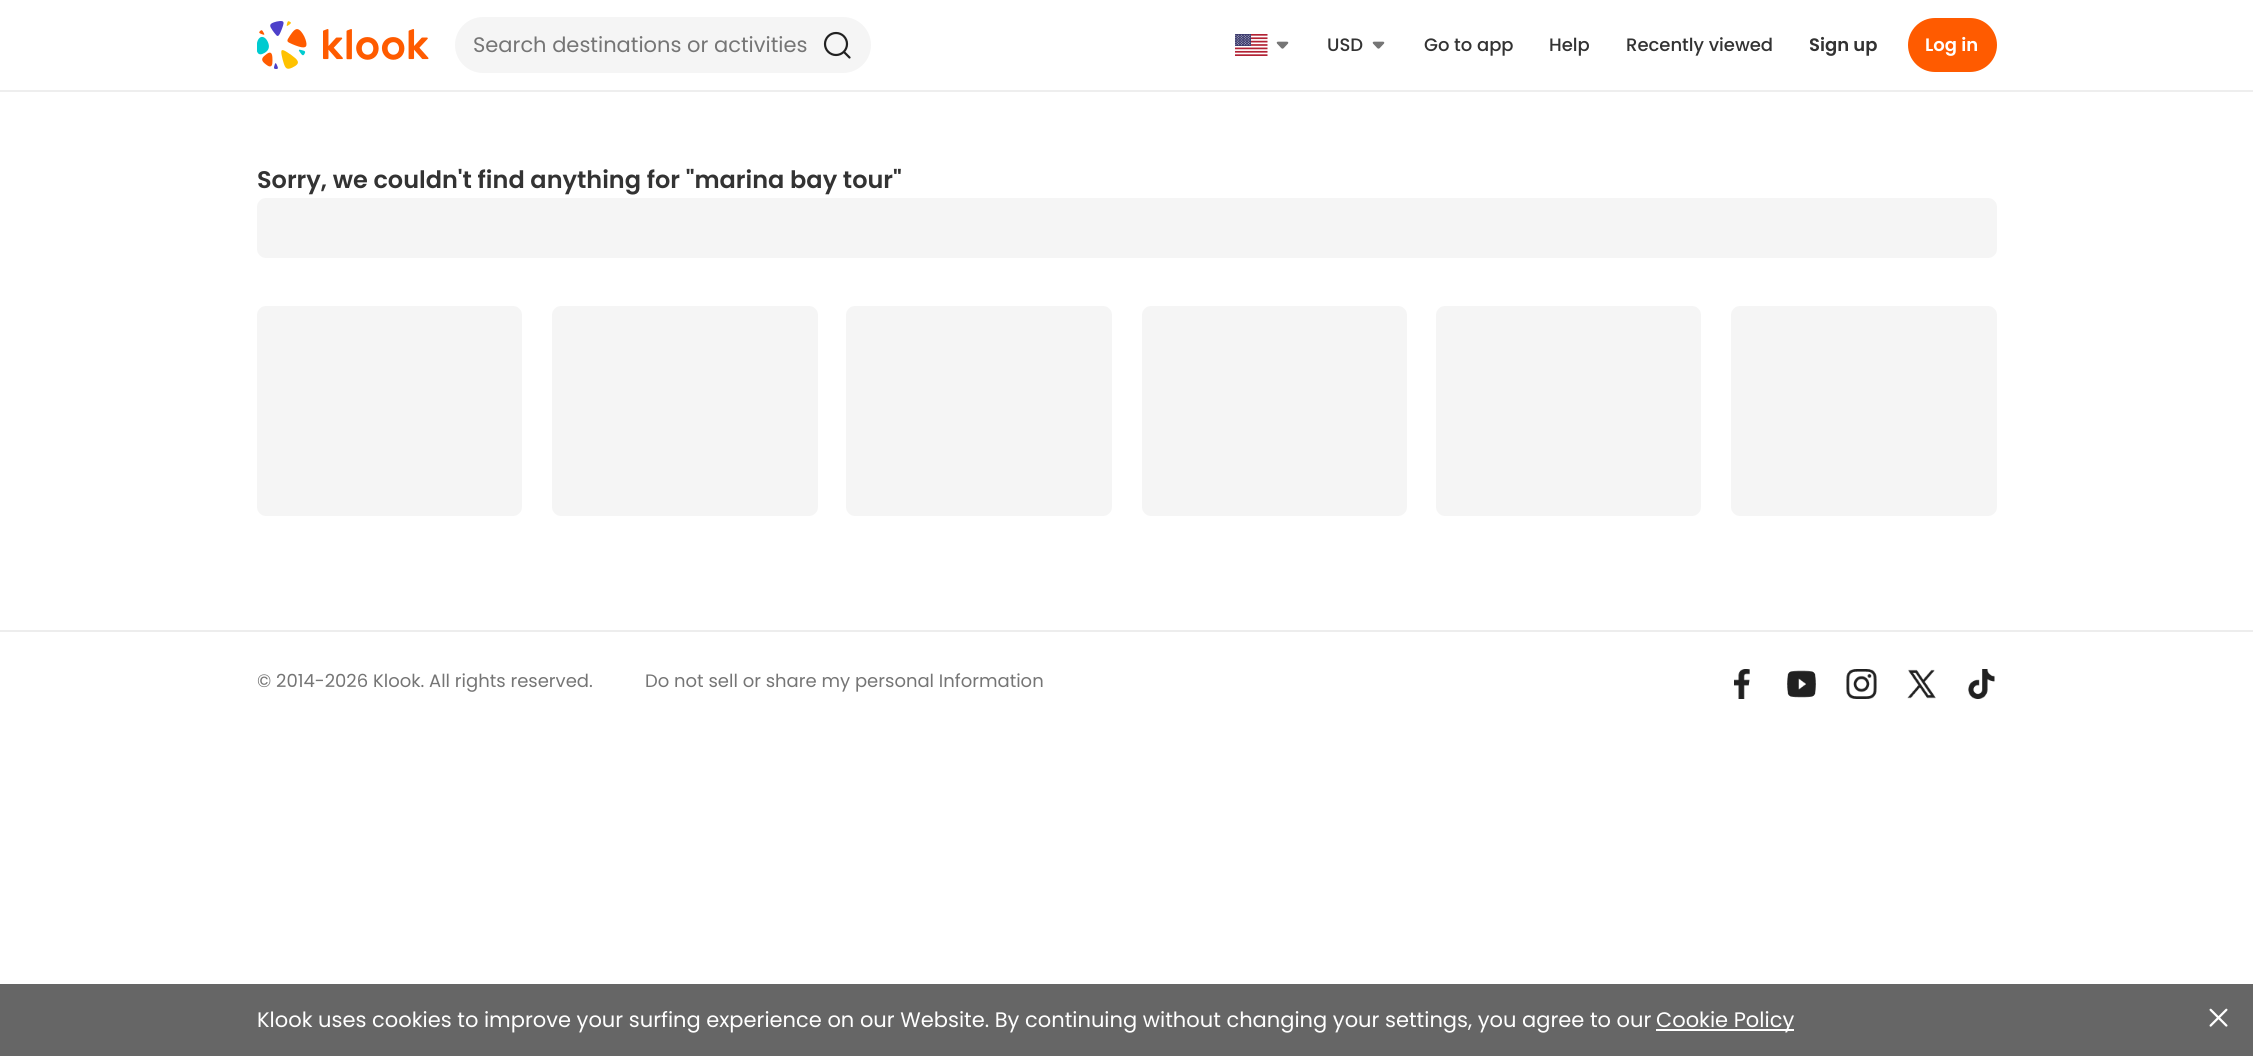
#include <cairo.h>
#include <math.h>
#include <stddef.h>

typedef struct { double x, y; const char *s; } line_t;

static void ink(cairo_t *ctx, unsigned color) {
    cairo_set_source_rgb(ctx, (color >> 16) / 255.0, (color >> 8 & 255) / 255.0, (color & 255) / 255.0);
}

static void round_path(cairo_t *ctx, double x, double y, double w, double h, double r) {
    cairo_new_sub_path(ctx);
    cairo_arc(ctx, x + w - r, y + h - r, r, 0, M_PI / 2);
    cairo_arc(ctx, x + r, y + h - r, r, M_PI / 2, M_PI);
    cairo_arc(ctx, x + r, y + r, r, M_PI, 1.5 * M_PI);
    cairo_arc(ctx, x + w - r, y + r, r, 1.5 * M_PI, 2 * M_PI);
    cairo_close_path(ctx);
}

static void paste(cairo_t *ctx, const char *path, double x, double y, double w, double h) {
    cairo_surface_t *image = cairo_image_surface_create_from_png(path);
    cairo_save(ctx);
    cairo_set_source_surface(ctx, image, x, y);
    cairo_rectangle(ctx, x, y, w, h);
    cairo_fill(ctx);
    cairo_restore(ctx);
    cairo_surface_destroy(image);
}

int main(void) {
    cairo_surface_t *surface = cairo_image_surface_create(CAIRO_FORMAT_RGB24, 2253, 1056);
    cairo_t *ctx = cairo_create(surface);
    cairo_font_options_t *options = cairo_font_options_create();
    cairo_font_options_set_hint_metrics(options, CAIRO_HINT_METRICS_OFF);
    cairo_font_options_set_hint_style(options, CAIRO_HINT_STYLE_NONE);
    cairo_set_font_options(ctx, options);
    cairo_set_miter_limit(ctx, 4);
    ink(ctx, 0xFFFFFF);
    cairo_paint(ctx);
    ink(ctx, 0xEEEEEE);
    cairo_rectangle(ctx, 0, 90, 2253, 2);
    cairo_fill(ctx);
    paste(ctx, "media/1.png", 257, 21, 172, 48);
    ink(ctx, 0xF5F5F5);
    round_path(ctx, 454, 16, 418, 58, 29);
    cairo_fill_preserve(ctx);
    ink(ctx, 0xFFFFFF);
    cairo_stroke(ctx);
    cairo_select_font_face(ctx, "Poppins", CAIRO_FONT_SLANT_NORMAL, CAIRO_FONT_WEIGHT_NORMAL);
    cairo_set_font_size(ctx, 21);
    ink(ctx, 0x757575);
    cairo_move_to(ctx, 473, 52);
    cairo_show_text(ctx, "Search destinations or activities");
    cairo_new_path(ctx);
    cairo_arc(ctx, 836, 44, 11, 0, 2 * M_PI);
    ink(ctx, 0x212121);
    cairo_set_line_width(ctx, 2.2);
    cairo_stroke(ctx);
    cairo_new_path(ctx);
    cairo_move_to(ctx, 844, 52);
    cairo_line_to(ctx, 849.5, 57.5);
    cairo_set_line_cap(ctx, CAIRO_LINE_CAP_ROUND);
    cairo_stroke(ctx);
    paste(ctx, "media/2.png", 1235, 34, 33, 22);
    paste(ctx, "media/3.png", 1276, 41, 13, 8);
    cairo_select_font_face(ctx, "Poppins Medium", CAIRO_FONT_SLANT_NORMAL, CAIRO_FONT_WEIGHT_NORMAL);
    cairo_set_font_size(ctx, 18);
    ink(ctx, 0x333333);
    cairo_move_to(ctx, 1327, 51);
    cairo_show_text(ctx, "USD");
    paste(ctx, "media/3.png", 1372, 41, 13, 8);
    {
        static const line_t items[] = {
            {1424, 51, "Go to app"},
            {1549, 51, "Help"},
            {1626, 51, "Recently viewed"},
        };
        for (size_t i = 0; i < sizeof items / sizeof *items; i++) {
            cairo_move_to(ctx, items[i].x, items[i].y);
            cairo_show_text(ctx, items[i].s);
        }
    }
    cairo_select_font_face(ctx, "Poppins SemiBold", CAIRO_FONT_SLANT_NORMAL, CAIRO_FONT_WEIGHT_NORMAL);
    cairo_move_to(ctx, 1809, 51);
    cairo_show_text(ctx, "Sign up");
    ink(ctx, 0xFF5B00);
    round_path(ctx, 1908, 18, 89, 54, 27);
    cairo_fill(ctx);
    ink(ctx, 0xFFFFFF);
    cairo_move_to(ctx, 1925, 51);
    cairo_show_text(ctx, "Log in");
    cairo_set_font_size(ctx, 24);
    ink(ctx, 0x333333);
    cairo_move_to(ctx, 257, 188);
    cairo_show_text(ctx, "Sorry, we couldn't find anything for \"marina bay tour\"");
    ink(ctx, 0xF5F5F5);
    round_path(ctx, 257, 198, 1740, 60, 9);
    cairo_fill(ctx);
    round_path(ctx, 257, 306, 265, 210, 9);
    cairo_fill(ctx);
    round_path(ctx, 552, 306, 266, 210, 9);
    cairo_fill(ctx);
    round_path(ctx, 846, 306, 266, 210, 9);
    cairo_fill(ctx);
    round_path(ctx, 1142, 306, 265, 210, 9);
    cairo_fill(ctx);
    round_path(ctx, 1436, 306, 265, 210, 9);
    cairo_fill(ctx);
    round_path(ctx, 1731, 306, 266, 210, 9);
    cairo_fill(ctx);
    ink(ctx, 0xEDEDED);
    cairo_rectangle(ctx, 0, 630, 2253, 2);
    cairo_fill(ctx);
    cairo_select_font_face(ctx, "Poppins", CAIRO_FONT_SLANT_NORMAL, CAIRO_FONT_WEIGHT_NORMAL);
    cairo_set_font_size(ctx, 18);
    ink(ctx, 0x757575);
    cairo_move_to(ctx, 257, 687);
    cairo_show_text(ctx, "© 2014-2026 Klook. All rights reserved.");
    cairo_move_to(ctx, 645, 687);
    cairo_show_text(ctx, "Do not sell or share my personal Information");
    paste(ctx, "media/4.png", 1734, 669, 16, 30);
    paste(ctx, "media/5.png", 1787, 670, 29, 28);
    paste(ctx, "media/6.png", 1846, 669, 31, 30);
    paste(ctx, "media/7.png", 1907, 669, 29, 30);
    paste(ctx, "media/8.png", 1968, 669, 27, 30);
    ink(ctx, 0x666666);
    cairo_rectangle(ctx, 0, 984, 2253, 72);
    cairo_fill(ctx);
    cairo_set_font_size(ctx, 21);
    ink(ctx, 0xFFFFFF);
    cairo_move_to(ctx, 257, 1027);
    cairo_show_text(ctx, "Klook uses cookies to improve your surfing experience on our Website. By continuing without changing your settings, you agree to our");
    cairo_rectangle(ctx, 1656, 1029, 138, 2);
    cairo_fill(ctx);
    cairo_move_to(ctx, 1656, 1027);
    cairo_show_text(ctx, "Cookie Policy");
    paste(ctx, "media/9.png", 2209, 1008, 19, 19);
    cairo_surface_write_to_png(surface, "image.png");
    cairo_font_options_destroy(options);
    cairo_destroy(ctx);
    cairo_surface_destroy(surface);
    return 0;
}
